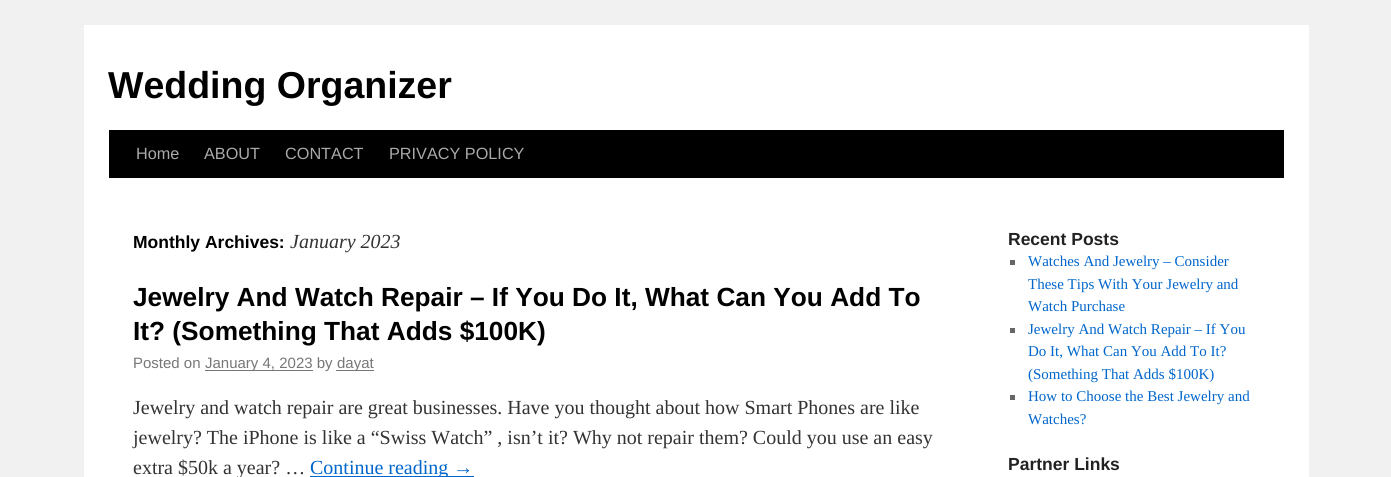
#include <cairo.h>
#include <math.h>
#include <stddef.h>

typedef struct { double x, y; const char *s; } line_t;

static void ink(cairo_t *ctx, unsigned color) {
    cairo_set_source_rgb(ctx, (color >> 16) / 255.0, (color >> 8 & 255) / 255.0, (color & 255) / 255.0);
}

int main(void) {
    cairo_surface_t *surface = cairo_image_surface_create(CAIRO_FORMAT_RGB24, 1391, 477);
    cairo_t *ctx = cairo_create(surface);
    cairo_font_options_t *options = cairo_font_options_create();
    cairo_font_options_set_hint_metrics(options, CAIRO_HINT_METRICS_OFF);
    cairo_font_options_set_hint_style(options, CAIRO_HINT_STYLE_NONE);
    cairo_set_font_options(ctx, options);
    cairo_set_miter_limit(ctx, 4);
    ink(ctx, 0xF1F1F1);
    cairo_paint(ctx);
    ink(ctx, 0xFFFFFF);
    cairo_rectangle(ctx, 84, 25, 1225, 452);
    cairo_fill(ctx);
    cairo_select_font_face(ctx, "Liberation Sans", CAIRO_FONT_SLANT_NORMAL, CAIRO_FONT_WEIGHT_BOLD);
    cairo_set_font_size(ctx, 37.5);
    ink(ctx, 0x000000);
    cairo_move_to(ctx, 108, 98);
    cairo_show_text(ctx, "Wedding Organizer");
    cairo_rectangle(ctx, 109, 130, 1175, 48);
    cairo_fill(ctx);
    cairo_select_font_face(ctx, "Liberation Sans", CAIRO_FONT_SLANT_NORMAL, CAIRO_FONT_WEIGHT_NORMAL);
    cairo_set_font_size(ctx, 16.25);
    ink(ctx, 0xAAAAAA);
    {
        static const line_t items[] = {
            {136, 159, "Home"},
            {204, 159, "ABOUT"},
            {285, 159, "CONTACT"},
            {389, 159, "PRIVACY POLICY"},
        };
        for (size_t i = 0; i < sizeof items / sizeof *items; i++) {
            cairo_move_to(ctx, items[i].x, items[i].y);
            cairo_show_text(ctx, items[i].s);
        }
    }
    cairo_select_font_face(ctx, "Liberation Sans", CAIRO_FONT_SLANT_NORMAL, CAIRO_FONT_WEIGHT_BOLD);
    cairo_set_font_size(ctx, 17.5);
    ink(ctx, 0x000000);
    cairo_move_to(ctx, 133, 248);
    cairo_show_text(ctx, "Monthly Archives:");
    cairo_select_font_face(ctx, "Liberation Serif", CAIRO_FONT_SLANT_ITALIC, CAIRO_FONT_WEIGHT_NORMAL);
    cairo_set_font_size(ctx, 20);
    ink(ctx, 0x333333);
    cairo_move_to(ctx, 290, 248);
    cairo_show_text(ctx, "January 2023");
    cairo_select_font_face(ctx, "Liberation Sans", CAIRO_FONT_SLANT_NORMAL, CAIRO_FONT_WEIGHT_BOLD);
    cairo_set_font_size(ctx, 26.25);
    ink(ctx, 0x000000);
    cairo_move_to(ctx, 133, 306);
    cairo_show_text(ctx, "Jewelry And Watch Repair – If You Do It, What Can You Add To");
    cairo_move_to(ctx, 133, 340);
    cairo_show_text(ctx, "It? (Something That Adds $100K)");
    cairo_select_font_face(ctx, "Liberation Sans", CAIRO_FONT_SLANT_NORMAL, CAIRO_FONT_WEIGHT_NORMAL);
    cairo_set_font_size(ctx, 15);
    ink(ctx, 0x777777);
    cairo_move_to(ctx, 133, 368);
    cairo_show_text(ctx, "Posted on");
    cairo_rectangle(ctx, 205, 370, 108, 1);
    cairo_fill(ctx);
    cairo_move_to(ctx, 205, 368);
    cairo_show_text(ctx, "January 4, 2023 by");
    cairo_rectangle(ctx, 336, 370, 38, 1);
    cairo_fill(ctx);
    cairo_move_to(ctx, 337, 368);
    cairo_show_text(ctx, "dayat");
    cairo_select_font_face(ctx, "Liberation Serif", CAIRO_FONT_SLANT_NORMAL, CAIRO_FONT_WEIGHT_NORMAL);
    cairo_set_font_size(ctx, 20);
    ink(ctx, 0x333333);
    {
        static const line_t items[] = {
            {133, 414, "Jewelry and watch repair are great businesses. Have you thought about how Smart Phones are like"},
            {133, 444, "jewelry? The iPhone is like a “Swiss Watch” , isn’t it? Why not repair them? Could you use an easy"},
            {133, 474, "extra $50k a year? …"},
        };
        for (size_t i = 0; i < sizeof items / sizeof *items; i++) {
            cairo_move_to(ctx, items[i].x, items[i].y);
            cairo_show_text(ctx, items[i].s);
        }
    }
    ink(ctx, 0x0066CC);
    cairo_rectangle(ctx, 310, 476, 164, 1);
    cairo_fill(ctx);
    cairo_move_to(ctx, 310, 474);
    cairo_show_text(ctx, "Continue reading →");
    cairo_select_font_face(ctx, "Liberation Sans", CAIRO_FONT_SLANT_NORMAL, CAIRO_FONT_WEIGHT_BOLD);
    cairo_set_font_size(ctx, 17.5);
    ink(ctx, 0x222222);
    cairo_move_to(ctx, 1008, 245);
    cairo_show_text(ctx, "Recent Posts");
    ink(ctx, 0x666666);
    cairo_rectangle(ctx, 1010, 260, 5, 5);
    cairo_fill(ctx);
    cairo_select_font_face(ctx, "Liberation Serif", CAIRO_FONT_SLANT_NORMAL, CAIRO_FONT_WEIGHT_NORMAL);
    cairo_set_font_size(ctx, 15);
    ink(ctx, 0x0066CC);
    {
        static const line_t items[] = {
            {1028, 266, "Watches And Jewelry – Consider"},
            {1028, 289, "These Tips With Your Jewelry and"},
            {1028, 311, "Watch Purchase"},
        };
        for (size_t i = 0; i < sizeof items / sizeof *items; i++) {
            cairo_move_to(ctx, items[i].x, items[i].y);
            cairo_show_text(ctx, items[i].s);
        }
    }
    ink(ctx, 0x666666);
    cairo_rectangle(ctx, 1010, 328, 5, 5);
    cairo_fill(ctx);
    ink(ctx, 0x0066CC);
    {
        static const line_t items[] = {
            {1028, 334, "Jewelry And Watch Repair – If You"},
            {1028, 356, "Do It, What Can You Add To It?"},
            {1028, 379, "(Something That Adds $100K)"},
        };
        for (size_t i = 0; i < sizeof items / sizeof *items; i++) {
            cairo_move_to(ctx, items[i].x, items[i].y);
            cairo_show_text(ctx, items[i].s);
        }
    }
    ink(ctx, 0x666666);
    cairo_rectangle(ctx, 1010, 395, 5, 5);
    cairo_fill(ctx);
    ink(ctx, 0x0066CC);
    cairo_move_to(ctx, 1028, 401);
    cairo_show_text(ctx, "How to Choose the Best Jewelry and");
    cairo_move_to(ctx, 1028, 424);
    cairo_show_text(ctx, "Watches?");
    cairo_select_font_face(ctx, "Liberation Sans", CAIRO_FONT_SLANT_NORMAL, CAIRO_FONT_WEIGHT_BOLD);
    cairo_set_font_size(ctx, 17.5);
    ink(ctx, 0x222222);
    cairo_move_to(ctx, 1008, 470);
    cairo_show_text(ctx, "Partner Links");
    cairo_surface_write_to_png(surface, "image.png");
    cairo_font_options_destroy(options);
    cairo_destroy(ctx);
    cairo_surface_destroy(surface);
    return 0;
}
